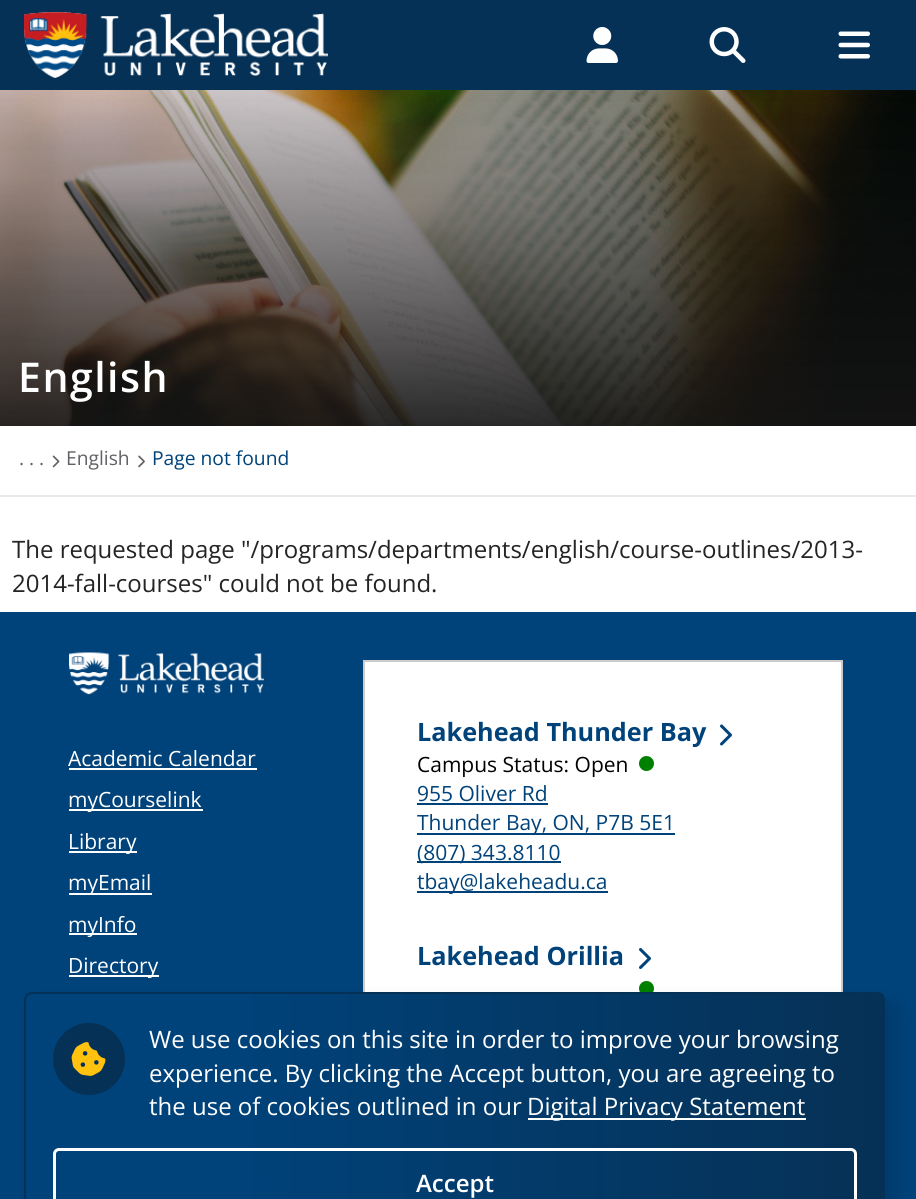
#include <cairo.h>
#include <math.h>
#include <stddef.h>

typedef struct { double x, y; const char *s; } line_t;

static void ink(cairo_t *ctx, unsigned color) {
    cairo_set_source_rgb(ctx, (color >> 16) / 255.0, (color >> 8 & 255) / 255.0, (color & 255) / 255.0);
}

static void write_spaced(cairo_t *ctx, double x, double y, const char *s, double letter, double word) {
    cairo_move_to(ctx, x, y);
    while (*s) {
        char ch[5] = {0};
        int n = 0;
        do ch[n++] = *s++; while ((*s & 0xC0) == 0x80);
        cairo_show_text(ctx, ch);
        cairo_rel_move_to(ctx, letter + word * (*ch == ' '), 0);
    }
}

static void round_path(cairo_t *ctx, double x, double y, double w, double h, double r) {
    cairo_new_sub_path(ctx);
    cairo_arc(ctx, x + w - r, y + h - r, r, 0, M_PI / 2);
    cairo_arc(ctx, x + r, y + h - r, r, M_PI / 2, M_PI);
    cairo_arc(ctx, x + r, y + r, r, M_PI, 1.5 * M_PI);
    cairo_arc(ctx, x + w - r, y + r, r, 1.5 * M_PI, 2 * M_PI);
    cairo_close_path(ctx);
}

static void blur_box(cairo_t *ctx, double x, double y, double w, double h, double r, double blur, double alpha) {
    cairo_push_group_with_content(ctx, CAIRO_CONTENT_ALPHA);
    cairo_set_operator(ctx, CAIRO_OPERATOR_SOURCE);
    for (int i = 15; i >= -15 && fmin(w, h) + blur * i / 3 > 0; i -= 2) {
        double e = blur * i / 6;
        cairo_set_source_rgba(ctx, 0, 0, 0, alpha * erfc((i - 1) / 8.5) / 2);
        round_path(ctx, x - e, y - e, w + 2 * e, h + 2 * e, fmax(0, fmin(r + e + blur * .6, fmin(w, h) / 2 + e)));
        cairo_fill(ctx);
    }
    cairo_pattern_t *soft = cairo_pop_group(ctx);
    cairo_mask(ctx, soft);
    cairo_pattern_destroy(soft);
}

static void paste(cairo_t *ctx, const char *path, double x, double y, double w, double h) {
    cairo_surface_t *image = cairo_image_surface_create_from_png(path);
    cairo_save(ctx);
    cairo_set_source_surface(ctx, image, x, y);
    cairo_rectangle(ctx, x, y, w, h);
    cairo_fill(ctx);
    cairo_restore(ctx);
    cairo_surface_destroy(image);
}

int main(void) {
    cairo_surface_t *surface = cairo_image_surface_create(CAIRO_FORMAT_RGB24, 916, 1199);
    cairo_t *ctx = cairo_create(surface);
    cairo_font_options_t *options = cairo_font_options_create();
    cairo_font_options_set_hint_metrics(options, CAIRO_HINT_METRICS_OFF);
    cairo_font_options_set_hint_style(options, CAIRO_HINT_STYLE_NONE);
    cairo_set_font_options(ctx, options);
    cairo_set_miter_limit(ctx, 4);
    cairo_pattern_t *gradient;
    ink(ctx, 0xFFFFFF);
    cairo_paint(ctx);
    ink(ctx, 0x063156);
    cairo_rectangle(ctx, 0, 0, 916, 90);
    cairo_fill(ctx);
    paste(ctx, "media/1.png", 24, 12, 304, 66);
    paste(ctx, "media/2.png", 586, 27, 32, 36);
    paste(ctx, "media/3.png", 709, 27, 37, 36);
    paste(ctx, "media/4.png", 838, 31, 32, 28);
    paste(ctx, "media/5.png", 0, 90, 916, 336);
    cairo_select_font_face(ctx, "Open Sans SemiBold", CAIRO_FONT_SLANT_NORMAL, CAIRO_FONT_WEIGHT_NORMAL);
    cairo_set_font_size(ctx, 41);
    ink(ctx, 0xFFFFFF);
    write_spaced(ctx, 18, 392, "English", 1.5, 0);
    ink(ctx, 0xEAEAEA);
    cairo_rectangle(ctx, 0, 495, 916, 2);
    cairo_fill(ctx);
    cairo_select_font_face(ctx, "Open Sans", CAIRO_FONT_SLANT_NORMAL, CAIRO_FONT_WEIGHT_NORMAL);
    cairo_set_font_size(ctx, 19.25);
    ink(ctx, 0x616265);
    cairo_move_to(ctx, 19, 465);
    cairo_show_text(ctx, ". . .");
    paste(ctx, "media/6.png", 52, 455, 8, 13);
    cairo_move_to(ctx, 66, 465);
    cairo_show_text(ctx, "English");
    paste(ctx, "media/7.png", 138, 455, 7, 13);
    ink(ctx, 0x00427A);
    cairo_move_to(ctx, 152, 465);
    cairo_show_text(ctx, "Page not found");
    cairo_set_font_size(ctx, 24);
    ink(ctx, 0x242424);
    cairo_move_to(ctx, 12, 558);
    cairo_show_text(ctx, "The requested page \"/programs/departments/english/course-outlines/2013-");
    cairo_move_to(ctx, 12, 592);
    cairo_show_text(ctx, "2014-fall-courses\" could not be found.");
    ink(ctx, 0x00427A);
    cairo_rectangle(ctx, 0, 612, 916, 587);
    cairo_fill(ctx);
    paste(ctx, "media/8.png", 69, 652, 195, 43);
    cairo_set_font_size(ctx, 21);
    ink(ctx, 0xFFFFFF);
    cairo_move_to(ctx, 68, 766);
    cairo_show_text(ctx, "Academic Calendar");
    cairo_rectangle(ctx, 69, 768, 188, 2);
    cairo_fill(ctx);
    cairo_rectangle(ctx, 69, 809, 134, 2);
    cairo_fill(ctx);
    cairo_move_to(ctx, 68, 807);
    cairo_show_text(ctx, "myCourselink");
    cairo_rectangle(ctx, 69, 851, 68, 2);
    cairo_fill(ctx);
    cairo_move_to(ctx, 68, 849);
    cairo_show_text(ctx, "Library");
    cairo_rectangle(ctx, 69, 893, 83, 2);
    cairo_fill(ctx);
    cairo_move_to(ctx, 68, 890);
    cairo_show_text(ctx, "myEmail");
    cairo_rectangle(ctx, 69, 933, 68, 2);
    cairo_fill(ctx);
    cairo_move_to(ctx, 68, 932);
    cairo_show_text(ctx, "myInfo");
    cairo_rectangle(ctx, 69, 975, 90, 2);
    cairo_fill(ctx);
    cairo_move_to(ctx, 68, 973);
    cairo_show_text(ctx, "Directory");
    cairo_rectangle(ctx, 365, 662, 476, 330);
    cairo_fill(ctx);
    cairo_rectangle(ctx, 364, 661, 478, 492);
    ink(ctx, 0xCCCCCC);
    cairo_stroke(ctx);
    cairo_select_font_face(ctx, "Open Sans", CAIRO_FONT_SLANT_NORMAL, CAIRO_FONT_WEIGHT_BOLD);
    cairo_set_font_size(ctx, 25.25);
    ink(ctx, 0x00427A);
    cairo_move_to(ctx, 417, 741);
    cairo_show_text(ctx, "Lakehead Thunder Bay");
    paste(ctx, "media/9.png", 720, 724, 12, 22);
    cairo_select_font_face(ctx, "Open Sans", CAIRO_FONT_SLANT_NORMAL, CAIRO_FONT_WEIGHT_NORMAL);
    cairo_set_font_size(ctx, 21);
    ink(ctx, 0x000000);
    cairo_move_to(ctx, 417, 772);
    cairo_show_text(ctx, "Campus Status: Open");
    ink(ctx, 0x008000);
    cairo_new_path(ctx);
    cairo_arc(ctx, 646.5, 763.5, 7.5, 0, 2 * M_PI);
    cairo_fill(ctx);
    ink(ctx, 0x00427A);
    cairo_move_to(ctx, 417, 801);
    cairo_show_text(ctx, "955 Oliver Rd");
    cairo_rectangle(ctx, 417, 803, 131, 2);
    cairo_fill(ctx);
    cairo_rectangle(ctx, 417, 833, 258, 2);
    cairo_fill(ctx);
    cairo_move_to(ctx, 417, 830);
    cairo_show_text(ctx, "Thunder Bay, ON, P7B 5E1");
    cairo_rectangle(ctx, 417, 861, 144, 2);
    cairo_fill(ctx);
    cairo_move_to(ctx, 417, 860);
    cairo_show_text(ctx, "(807) 343.8110");
    cairo_rectangle(ctx, 417, 891, 191, 2);
    cairo_fill(ctx);
    cairo_move_to(ctx, 417, 889);
    cairo_show_text(ctx, "tbay@lakeheadu.ca");
    cairo_select_font_face(ctx, "Open Sans", CAIRO_FONT_SLANT_NORMAL, CAIRO_FONT_WEIGHT_BOLD);
    cairo_set_font_size(ctx, 25.25);
    cairo_move_to(ctx, 417, 965);
    cairo_show_text(ctx, "Lakehead Orillia");
    paste(ctx, "media/10.png", 639, 948, 12, 21);
    ink(ctx, 0x008000);
    cairo_arc(ctx, 646.5, 988.5, 7.5, 0, 2 * M_PI);
    cairo_fill(ctx);
    ink(ctx, 0x000000);
    blur_box(ctx, 36, 1004, 861, 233, 8, 10, 0.13);
    cairo_save(ctx);
    round_path(ctx, 24, 992, 861, 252, 8);
    cairo_clip(ctx);
    gradient = cairo_pattern_create_linear(25, 1118, 884, 1117);
    cairo_pattern_add_color_stop_rgba(gradient, 0.24, 0, 0.259, 0.478, 1);
    cairo_pattern_add_color_stop_rgba(gradient, 1, 0.024, 0.192, 0.337, 1);
    cairo_set_source(ctx, gradient);
    cairo_pattern_destroy(gradient);
    cairo_rectangle(ctx, 26, 993, 858, 206);
    cairo_fill(ctx);
    cairo_restore(ctx);
    round_path(ctx, 25, 993, 859, 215, 7);
    ink(ctx, 0x063156);
    cairo_stroke(ctx);
    cairo_arc(ctx, 89, 1059, 36, 0, 2 * M_PI);
    cairo_fill(ctx);
    paste(ctx, "media/11.png", 71, 1042, 35, 34);
    cairo_select_font_face(ctx, "Open Sans", CAIRO_FONT_SLANT_NORMAL, CAIRO_FONT_WEIGHT_NORMAL);
    cairo_set_font_size(ctx, 24);
    ink(ctx, 0xFFFFFF);
    {
        static const line_t items[] = {
            {149, 1048, "We use cookies on this site in order to improve your browsing"},
            {149, 1082, "experience. By clicking the Accept button, you are agreeing to"},
            {149, 1115, "the use of cookies outlined in our"},
        };
        for (size_t i = 0; i < sizeof items / sizeof *items; i++) {
            cairo_move_to(ctx, items[i].x, items[i].y);
            cairo_show_text(ctx, items[i].s);
        }
    }
    cairo_rectangle(ctx, 528, 1118, 278, 2);
    cairo_fill(ctx);
    cairo_move_to(ctx, 527, 1115);
    cairo_show_text(ctx, "Digital Privacy Statement");
    round_path(ctx, 54.5, 1149.5, 801, 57, 4.5);
    cairo_set_line_width(ctx, 3);
    cairo_stroke(ctx);
    cairo_select_font_face(ctx, "Open Sans SemiBold", CAIRO_FONT_SLANT_NORMAL, CAIRO_FONT_WEIGHT_NORMAL);
    cairo_move_to(ctx, 416, 1192);
    cairo_show_text(ctx, "Accept");
    cairo_surface_write_to_png(surface, "image.png");
    cairo_font_options_destroy(options);
    cairo_destroy(ctx);
    cairo_surface_destroy(surface);
    return 0;
}
